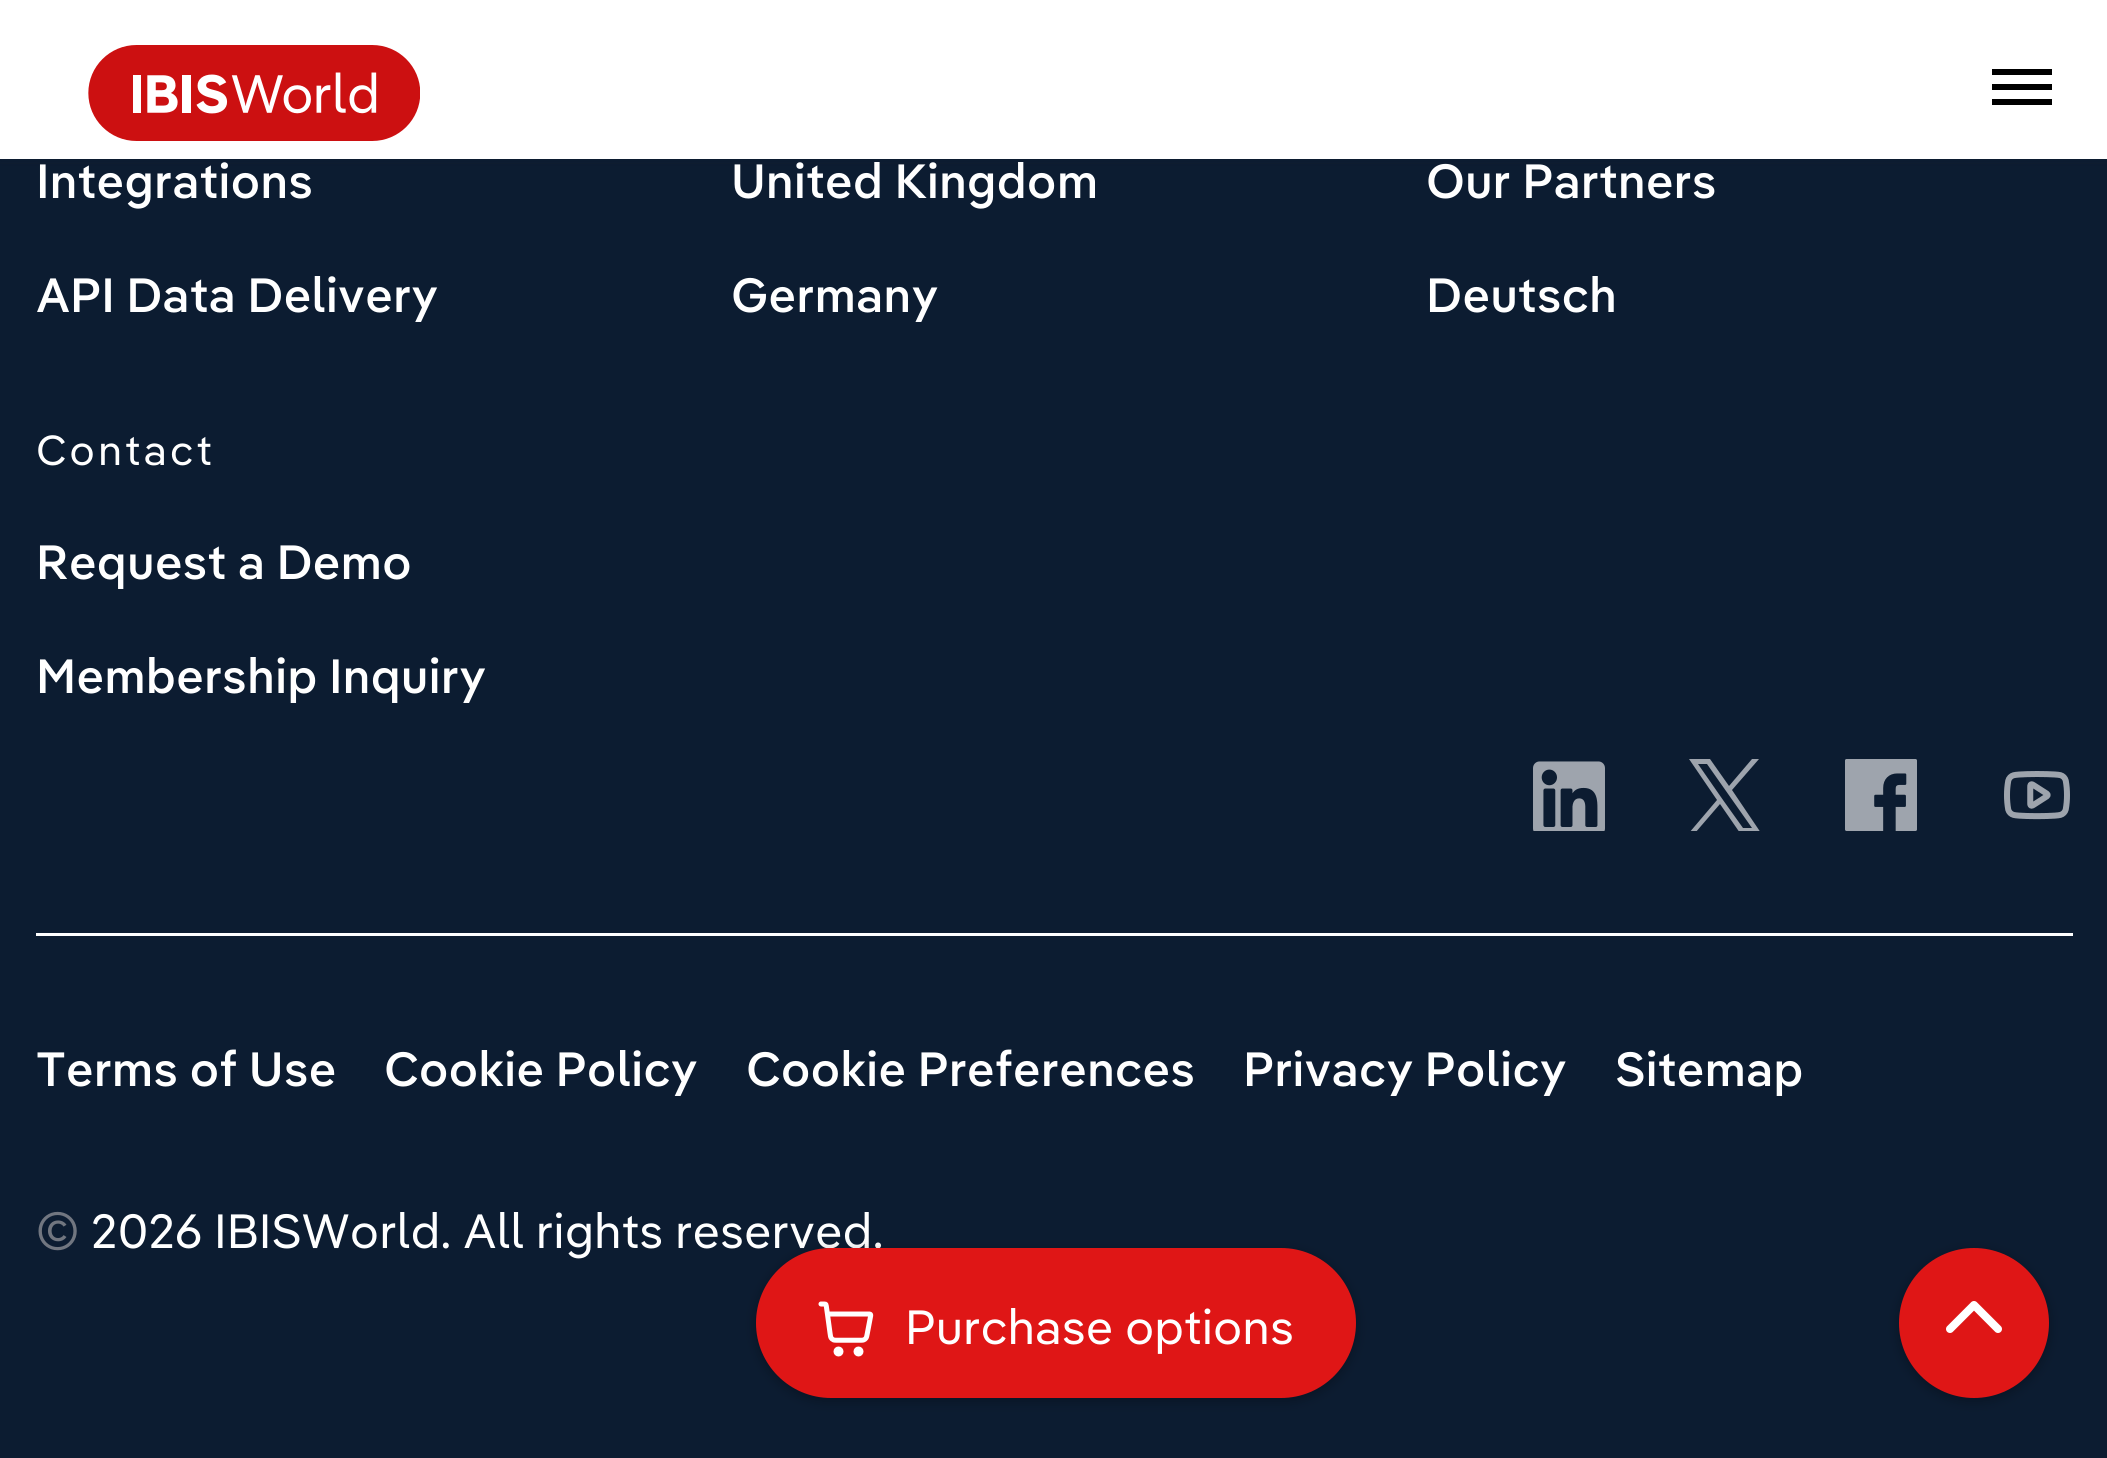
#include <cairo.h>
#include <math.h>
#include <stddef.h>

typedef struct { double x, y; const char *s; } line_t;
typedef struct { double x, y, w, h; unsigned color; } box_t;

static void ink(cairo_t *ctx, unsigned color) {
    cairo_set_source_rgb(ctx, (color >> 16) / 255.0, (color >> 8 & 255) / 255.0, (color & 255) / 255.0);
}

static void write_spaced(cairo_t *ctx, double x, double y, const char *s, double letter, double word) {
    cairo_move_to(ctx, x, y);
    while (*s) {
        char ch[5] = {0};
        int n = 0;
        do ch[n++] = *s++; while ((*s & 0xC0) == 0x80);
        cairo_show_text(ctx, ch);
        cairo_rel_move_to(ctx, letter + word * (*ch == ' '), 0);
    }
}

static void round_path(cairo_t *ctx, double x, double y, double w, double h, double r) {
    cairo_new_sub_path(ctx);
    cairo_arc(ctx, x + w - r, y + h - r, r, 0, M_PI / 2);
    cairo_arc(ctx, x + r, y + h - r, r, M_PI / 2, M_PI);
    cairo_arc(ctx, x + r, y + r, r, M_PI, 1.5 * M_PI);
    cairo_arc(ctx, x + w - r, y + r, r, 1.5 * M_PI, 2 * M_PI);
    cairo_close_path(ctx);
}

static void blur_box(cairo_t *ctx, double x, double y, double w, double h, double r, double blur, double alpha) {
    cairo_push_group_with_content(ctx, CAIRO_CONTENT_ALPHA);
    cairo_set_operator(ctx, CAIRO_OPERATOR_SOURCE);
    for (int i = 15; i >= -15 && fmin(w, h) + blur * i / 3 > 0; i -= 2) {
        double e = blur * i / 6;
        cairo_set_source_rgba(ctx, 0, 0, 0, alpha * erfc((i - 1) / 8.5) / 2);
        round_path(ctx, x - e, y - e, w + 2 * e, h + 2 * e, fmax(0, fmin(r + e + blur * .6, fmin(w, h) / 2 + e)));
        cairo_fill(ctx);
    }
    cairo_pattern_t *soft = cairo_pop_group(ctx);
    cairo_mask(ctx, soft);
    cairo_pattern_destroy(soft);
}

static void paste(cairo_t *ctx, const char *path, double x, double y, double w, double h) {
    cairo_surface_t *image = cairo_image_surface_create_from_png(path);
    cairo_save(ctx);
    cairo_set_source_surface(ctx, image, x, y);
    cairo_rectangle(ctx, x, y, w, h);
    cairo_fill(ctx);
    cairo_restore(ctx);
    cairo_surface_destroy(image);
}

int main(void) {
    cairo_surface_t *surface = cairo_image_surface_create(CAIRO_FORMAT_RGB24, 2107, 1458);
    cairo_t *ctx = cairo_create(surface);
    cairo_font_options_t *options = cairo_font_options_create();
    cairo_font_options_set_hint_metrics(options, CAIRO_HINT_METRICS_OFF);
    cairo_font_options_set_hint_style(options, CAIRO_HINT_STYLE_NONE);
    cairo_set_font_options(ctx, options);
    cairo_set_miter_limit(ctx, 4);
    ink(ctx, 0x0C1C31);
    cairo_paint(ctx);
    ink(ctx, 0x101828);
    blur_box(ctx, 0, 3, 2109, 159, 0, 3, 0.1);
    blur_box(ctx, 0, 3, 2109, 159, 0, 4.5, 0.1);
    ink(ctx, 0xFFFFFF);
    cairo_rectangle(ctx, 0, 0, 2107, 159);
    cairo_fill(ctx);
    paste(ctx, "media/1.png", 88, 45, 332, 96);
    {
        static const box_t items[] = {
            {1992, 69, 60, 6, 0x000000},
            {1992, 84, 60, 6, 0x000000},
            {1992, 99, 60, 6, 0x000000},
        };
        for (size_t i = 0; i < sizeof items / sizeof *items; i++) {
            ink(ctx, items[i].color);
            cairo_rectangle(ctx, items[i].x, items[i].y, items[i].w, items[i].h);
            cairo_fill(ctx);
        }
    }
    cairo_select_font_face(ctx, "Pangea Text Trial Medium", CAIRO_FONT_SLANT_NORMAL, CAIRO_FONT_WEIGHT_NORMAL);
    cairo_set_font_size(ctx, 48);
    ink(ctx, 0xFFFFFF);
    {
        static const line_t items[] = {
            {36, 198, "Integrations"},
            {36, 312, "API Data Delivery"},
            {731, 198, "United Kingdom"},
            {731, 312, "Germany"},
            {1426, 198, "Our Partners"},
            {1426, 312, "Deutsch"},
        };
        for (size_t i = 0; i < sizeof items / sizeof *items; i++) {
            cairo_move_to(ctx, items[i].x, items[i].y);
            cairo_show_text(ctx, items[i].s);
        }
    }
    cairo_select_font_face(ctx, "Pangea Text", CAIRO_FONT_SLANT_NORMAL, CAIRO_FONT_WEIGHT_NORMAL);
    cairo_set_font_size(ctx, 42);
    write_spaced(ctx, 36, 465, "Contact", 3, 0);
    cairo_select_font_face(ctx, "Pangea Text Trial Medium", CAIRO_FONT_SLANT_NORMAL, CAIRO_FONT_WEIGHT_NORMAL);
    cairo_set_font_size(ctx, 48);
    cairo_move_to(ctx, 36, 579);
    cairo_show_text(ctx, "Request a Demo");
    cairo_move_to(ctx, 36, 693);
    cairo_show_text(ctx, "Membership Inquiry");
    paste(ctx, "media/2.png", 1533, 761, 72, 70);
    cairo_save(ctx);
    cairo_rectangle(ctx, 1689, 759, 72, 72);
    cairo_clip(ctx);
    ink(ctx, 0x9EA4AD);
    cairo_new_path(ctx);
    cairo_move_to(ctx, 1732, 790);
    cairo_line_to(ctx, 1759, 759);
    cairo_line_to(ctx, 1752, 759);
    cairo_line_to(ctx, 1729, 786);
    cairo_line_to(ctx, 1710, 759);
    cairo_line_to(ctx, 1689, 759);
    cairo_line_to(ctx, 1717, 800);
    cairo_line_to(ctx, 1689, 833);
    cairo_line_to(ctx, 1695, 833);
    cairo_line_to(ctx, 1720, 804);
    cairo_line_to(ctx, 1740, 833);
    cairo_line_to(ctx, 1761, 833);
    cairo_close_path(ctx);
    cairo_move_to(ctx, 1723, 800);
    cairo_line_to(ctx, 1698, 764);
    cairo_line_to(ctx, 1707, 764);
    cairo_line_to(ctx, 1752, 828);
    cairo_line_to(ctx, 1743, 828);
    cairo_close_path(ctx);
    cairo_fill(ctx);
    cairo_restore(ctx);
    paste(ctx, "media/3.png", 1845, 759, 72, 72);
    paste(ctx, "media/4.png", 2004, 771, 66, 49);
    cairo_rectangle(ctx, 36, 933, 2037, 3);
    cairo_fill(ctx);
    {
        static const line_t items[] = {
            {36, 1086, "Terms of Use"},
            {384, 1086, "Cookie Policy"},
            {746, 1086, "Cookie Preferences"},
            {1243, 1086, "Privacy Policy"},
            {1615, 1086, "Sitemap"},
        };
        for (size_t i = 0; i < sizeof items / sizeof *items; i++) {
            cairo_move_to(ctx, items[i].x, items[i].y);
            cairo_show_text(ctx, items[i].s);
        }
    }
    cairo_select_font_face(ctx, "Pangea Text", CAIRO_FONT_SLANT_NORMAL, CAIRO_FONT_WEIGHT_NORMAL);
    ink(ctx, 0x717680);
    cairo_move_to(ctx, 36, 1248);
    cairo_show_text(ctx, "©");
    ink(ctx, 0xFFFFFF);
    cairo_move_to(ctx, 91, 1248);
    cairo_show_text(ctx, "2026 IBISWorld. All rights reserved.");
    ink(ctx, 0x000000);
    blur_box(ctx, 756, 1251, 600, 150, 75, 6, 0.3);
    ink(ctx, 0xDF1616);
    round_path(ctx, 756, 1248, 600, 150, 75);
    cairo_fill(ctx);
    paste(ctx, "media/5.png", 818, 1301, 56, 56);
    ink(ctx, 0xFFFFFF);
    cairo_move_to(ctx, 905, 1344);
    cairo_show_text(ctx, "Purchase options");
    ink(ctx, 0x000000);
    blur_box(ctx, 1899, 1251, 150, 150, 75, 6, 0.3);
    ink(ctx, 0xDF1616);
    cairo_arc(ctx, 1974, 1323, 75, 0, 2 * M_PI);
    cairo_fill(ctx);
    cairo_new_path(ctx);
    cairo_move_to(ctx, 1998, 1329);
    cairo_line_to(ctx, 1974, 1305);
    cairo_line_to(ctx, 1950, 1329);
    ink(ctx, 0xFFFFFF);
    cairo_set_line_width(ctx, 8);
    cairo_set_line_cap(ctx, CAIRO_LINE_CAP_ROUND);
    cairo_set_line_join(ctx, CAIRO_LINE_JOIN_ROUND);
    cairo_stroke(ctx);
    cairo_surface_write_to_png(surface, "image.png");
    cairo_font_options_destroy(options);
    cairo_destroy(ctx);
    cairo_surface_destroy(surface);
    return 0;
}
